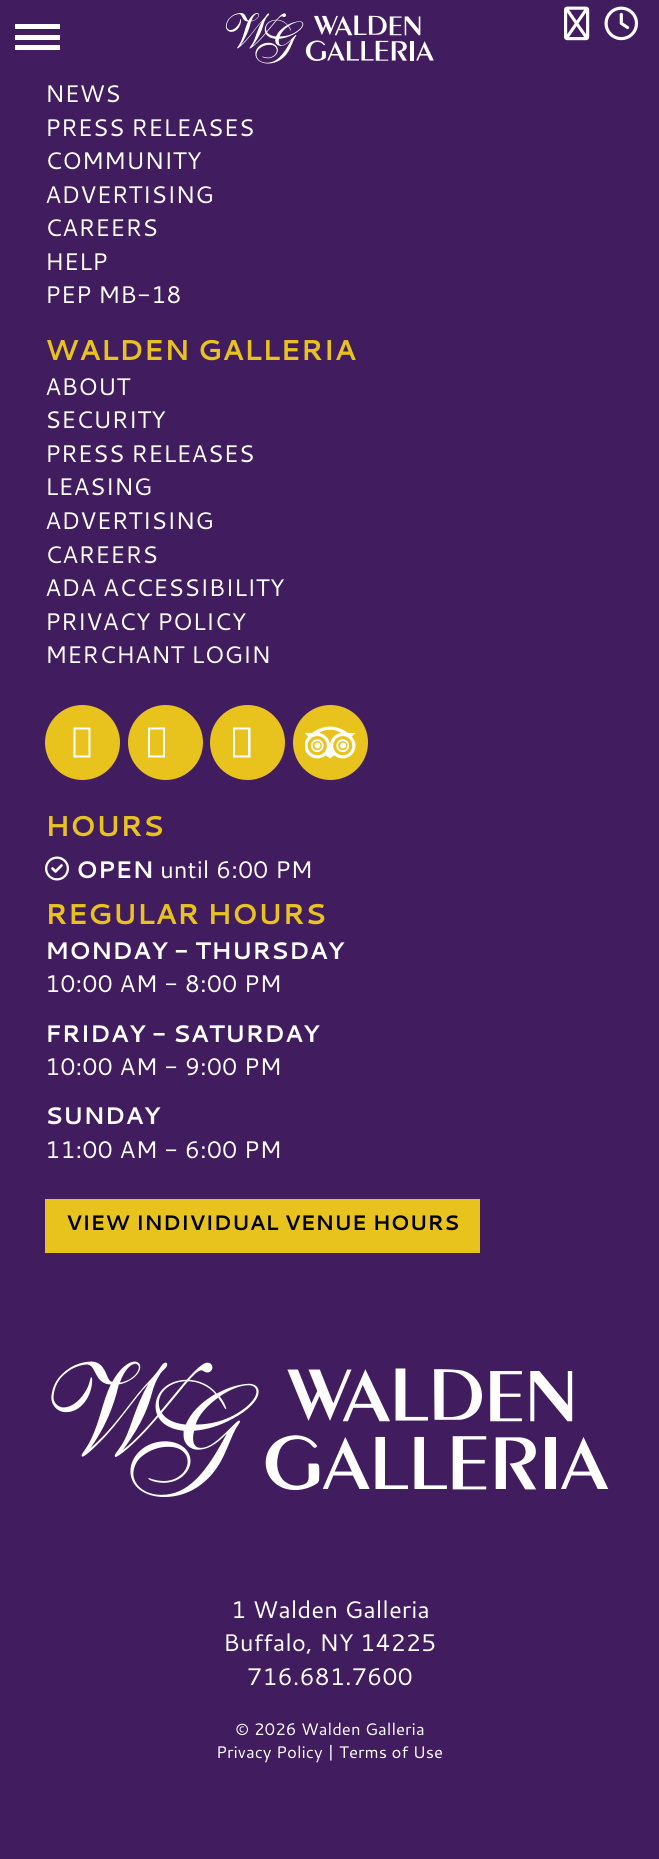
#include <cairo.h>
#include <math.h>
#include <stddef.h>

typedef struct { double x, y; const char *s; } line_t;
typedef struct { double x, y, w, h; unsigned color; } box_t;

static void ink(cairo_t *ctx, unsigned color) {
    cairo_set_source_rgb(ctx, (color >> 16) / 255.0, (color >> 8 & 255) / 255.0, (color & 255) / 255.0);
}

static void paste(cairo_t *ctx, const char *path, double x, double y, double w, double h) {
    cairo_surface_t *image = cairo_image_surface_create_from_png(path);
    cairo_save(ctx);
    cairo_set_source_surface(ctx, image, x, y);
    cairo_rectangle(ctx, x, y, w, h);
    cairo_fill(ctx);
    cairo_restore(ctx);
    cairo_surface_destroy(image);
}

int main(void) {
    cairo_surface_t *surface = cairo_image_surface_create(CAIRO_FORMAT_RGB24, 659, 1859);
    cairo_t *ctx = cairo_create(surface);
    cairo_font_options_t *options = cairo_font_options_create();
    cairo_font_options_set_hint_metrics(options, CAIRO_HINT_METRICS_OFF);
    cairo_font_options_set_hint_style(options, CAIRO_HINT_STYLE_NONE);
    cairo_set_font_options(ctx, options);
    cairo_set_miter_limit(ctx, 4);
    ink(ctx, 0x411C5E);
    cairo_paint(ctx);
    {
        static const box_t items[] = {
            {15, 35, 45, 5, 0xFFFFFF},
            {15, 24, 45, 5, 0xFFFFFF},
            {15, 45, 45, 5, 0xFFFFFF},
        };
        for (size_t i = 0; i < sizeof items / sizeof *items; i++) {
            ink(ctx, items[i].color);
            cairo_rectangle(ctx, items[i].x, items[i].y, items[i].w, items[i].h);
            cairo_fill(ctx);
        }
    }
    paste(ctx, "media/1.png", 225, 13, 209, 51);
    paste(ctx, "media/2.png", 564, 6, 26, 35);
    paste(ctx, "media/3.png", 604, 6, 35, 35);
    cairo_select_font_face(ctx, "Cantarell", CAIRO_FONT_SLANT_NORMAL, CAIRO_FONT_WEIGHT_NORMAL);
    cairo_set_font_size(ctx, 24);
    {
        static const line_t items[] = {
            {45, 102, "NEWS"},
            {45, 136, "PRESS RELEASES"},
            {45, 169, "COMMUNITY"},
            {45, 203, "ADVERTISING"},
            {45, 236, "CAREERS"},
            {45, 270, "HELP"},
            {45, 303, "PEP MB-18"},
        };
        for (size_t i = 0; i < sizeof items / sizeof *items; i++) {
            cairo_move_to(ctx, items[i].x, items[i].y);
            cairo_show_text(ctx, items[i].s);
        }
    }
    cairo_select_font_face(ctx, "Cantarell", CAIRO_FONT_SLANT_NORMAL, CAIRO_FONT_WEIGHT_BOLD);
    cairo_set_font_size(ctx, 28.75);
    ink(ctx, 0xE8C31D);
    cairo_move_to(ctx, 45, 360);
    cairo_show_text(ctx, "WALDEN GALLERIA");
    cairo_select_font_face(ctx, "Cantarell", CAIRO_FONT_SLANT_NORMAL, CAIRO_FONT_WEIGHT_NORMAL);
    cairo_set_font_size(ctx, 24);
    ink(ctx, 0xFFFFFF);
    {
        static const line_t items[] = {
            {45, 395, "ABOUT"},
            {45, 428, "SECURITY"},
            {45, 462, "PRESS RELEASES"},
            {45, 495, "LEASING"},
            {45, 529, "ADVERTISING"},
            {45, 563, "CAREERS"},
            {45, 596, "ADA ACCESSIBILITY"},
            {45, 630, "PRIVACY POLICY"},
            {45, 663, "MERCHANT LOGIN"},
        };
        for (size_t i = 0; i < sizeof items / sizeof *items; i++) {
            cairo_move_to(ctx, items[i].x, items[i].y);
            cairo_show_text(ctx, items[i].s);
        }
    }
    ink(ctx, 0xE8C31D);
    cairo_new_path(ctx);
    cairo_arc(ctx, 82.5, 742.5, 37.5, 0, 2 * M_PI);
    cairo_fill(ctx);
    ink(ctx, 0xFFFFFF);
    cairo_new_path(ctx);
    cairo_move_to(ctx, 73.5, 757.5);
    cairo_line_to(ctx, 73.5, 727.5);
    cairo_line_to(ctx, 90.5, 727.5);
    cairo_line_to(ctx, 90.5, 757.5);
    cairo_close_path(ctx);
    cairo_move_to(ctx, 75.5, 755.5);
    cairo_line_to(ctx, 88.5, 755.5);
    cairo_line_to(ctx, 88.5, 729.5);
    cairo_line_to(ctx, 75.5, 729.5);
    cairo_close_path(ctx);
    cairo_fill(ctx);
    ink(ctx, 0xE8C31D);
    cairo_arc(ctx, 165.5, 742.5, 37.5, 0, 2 * M_PI);
    cairo_fill(ctx);
    ink(ctx, 0xFFFFFF);
    cairo_new_path(ctx);
    cairo_move_to(ctx, 148, 757.5);
    cairo_line_to(ctx, 148, 727.5);
    cairo_line_to(ctx, 165, 727.5);
    cairo_line_to(ctx, 165, 757.5);
    cairo_close_path(ctx);
    cairo_move_to(ctx, 150, 755.5);
    cairo_line_to(ctx, 163, 755.5);
    cairo_line_to(ctx, 163, 729.5);
    cairo_line_to(ctx, 150, 729.5);
    cairo_close_path(ctx);
    cairo_fill(ctx);
    ink(ctx, 0xE8C31D);
    cairo_arc(ctx, 247.5, 742.5, 37.5, 0, 2 * M_PI);
    cairo_fill(ctx);
    ink(ctx, 0xFFFFFF);
    cairo_new_path(ctx);
    cairo_move_to(ctx, 233, 757.5);
    cairo_line_to(ctx, 233, 727.5);
    cairo_line_to(ctx, 250.5, 727.5);
    cairo_line_to(ctx, 250.5, 757.5);
    cairo_close_path(ctx);
    cairo_move_to(ctx, 235, 755.5);
    cairo_line_to(ctx, 248, 755.5);
    cairo_line_to(ctx, 248, 729.5);
    cairo_line_to(ctx, 235, 729.5);
    cairo_close_path(ctx);
    cairo_fill(ctx);
    ink(ctx, 0xE8C31D);
    cairo_arc(ctx, 330.5, 742.5, 37.5, 0, 2 * M_PI);
    cairo_fill(ctx);
    paste(ctx, "media/4.png", 305, 726, 51, 33);
    cairo_select_font_face(ctx, "Cantarell", CAIRO_FONT_SLANT_NORMAL, CAIRO_FONT_WEIGHT_BOLD);
    cairo_set_font_size(ctx, 28.75);
    cairo_move_to(ctx, 45, 836);
    cairo_show_text(ctx, "HOURS");
    paste(ctx, "media/5.png", 45, 856, 24, 25);
    cairo_set_font_size(ctx, 24);
    ink(ctx, 0xFFFFFF);
    cairo_move_to(ctx, 76, 878);
    cairo_show_text(ctx, "OPEN");
    cairo_select_font_face(ctx, "Cantarell", CAIRO_FONT_SLANT_NORMAL, CAIRO_FONT_WEIGHT_NORMAL);
    cairo_move_to(ctx, 160, 878);
    cairo_show_text(ctx, "until 6:00 PM");
    cairo_select_font_face(ctx, "Cantarell", CAIRO_FONT_SLANT_NORMAL, CAIRO_FONT_WEIGHT_BOLD);
    cairo_set_font_size(ctx, 28.75);
    ink(ctx, 0xE8C31D);
    cairo_move_to(ctx, 45, 924);
    cairo_show_text(ctx, "REGULAR HOURS");
    cairo_set_font_size(ctx, 24);
    ink(ctx, 0xFFFFFF);
    cairo_move_to(ctx, 45, 959);
    cairo_show_text(ctx, "MONDAY - THURSDAY");
    cairo_select_font_face(ctx, "Cantarell", CAIRO_FONT_SLANT_NORMAL, CAIRO_FONT_WEIGHT_NORMAL);
    cairo_move_to(ctx, 45, 992);
    cairo_show_text(ctx, "10:00 AM - 8:00 PM");
    cairo_select_font_face(ctx, "Cantarell", CAIRO_FONT_SLANT_NORMAL, CAIRO_FONT_WEIGHT_BOLD);
    cairo_move_to(ctx, 45, 1042);
    cairo_show_text(ctx, "FRIDAY - SATURDAY");
    cairo_select_font_face(ctx, "Cantarell", CAIRO_FONT_SLANT_NORMAL, CAIRO_FONT_WEIGHT_NORMAL);
    cairo_move_to(ctx, 45, 1075);
    cairo_show_text(ctx, "10:00 AM - 9:00 PM");
    cairo_select_font_face(ctx, "Cantarell", CAIRO_FONT_SLANT_NORMAL, CAIRO_FONT_WEIGHT_BOLD);
    cairo_move_to(ctx, 45, 1124);
    cairo_show_text(ctx, "SUNDAY");
    cairo_select_font_face(ctx, "Cantarell", CAIRO_FONT_SLANT_NORMAL, CAIRO_FONT_WEIGHT_NORMAL);
    cairo_move_to(ctx, 45, 1158);
    cairo_show_text(ctx, "11:00 AM - 6:00 PM");
    ink(ctx, 0xE8C31D);
    cairo_rectangle(ctx, 45, 1199, 435, 54);
    cairo_fill(ctx);
    cairo_select_font_face(ctx, "Cantarell", CAIRO_FONT_SLANT_NORMAL, CAIRO_FONT_WEIGHT_BOLD);
    cairo_set_font_size(ctx, 21);
    ink(ctx, 0x000000);
    cairo_move_to(ctx, 66, 1230);
    cairo_show_text(ctx, "VIEW INDIVIDUAL VENUE HOURS");
    paste(ctx, "media/6.png", 51, 1361, 558, 136);
    cairo_select_font_face(ctx, "Cantarell", CAIRO_FONT_SLANT_NORMAL, CAIRO_FONT_WEIGHT_NORMAL);
    cairo_set_font_size(ctx, 24);
    ink(ctx, 0xFFFFFF);
    {
        static const line_t items[] = {
            {231, 1618, "1 Walden Galleria"},
            {223, 1651, "Buffalo, NY 14225"},
            {247, 1685, "716.681.7600"},
        };
        for (size_t i = 0; i < sizeof items / sizeof *items; i++) {
            cairo_move_to(ctx, items[i].x, items[i].y);
            cairo_show_text(ctx, items[i].s);
        }
    }
    cairo_set_font_size(ctx, 16.75);
    cairo_move_to(ctx, 235, 1735);
    cairo_show_text(ctx, "© 2026 Walden Galleria");
    cairo_move_to(ctx, 216, 1758);
    cairo_show_text(ctx, "Privacy Policy | Terms of Use");
    cairo_surface_write_to_png(surface, "image.png");
    cairo_font_options_destroy(options);
    cairo_destroy(ctx);
    cairo_surface_destroy(surface);
    return 0;
}
